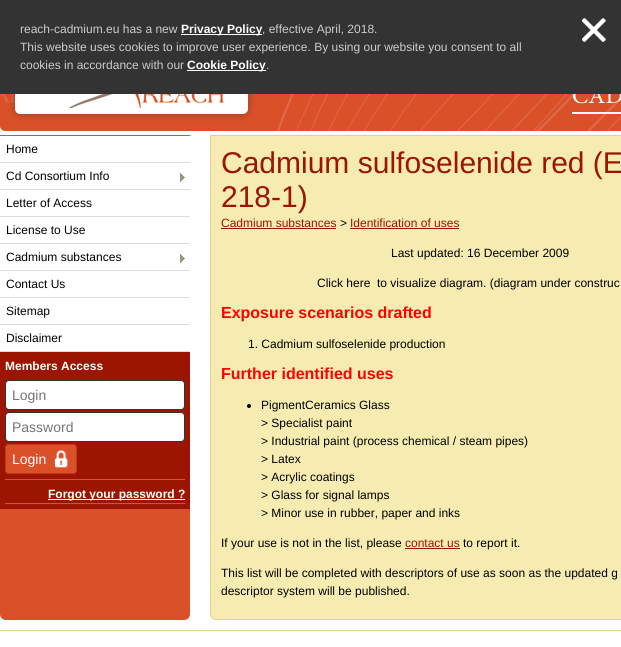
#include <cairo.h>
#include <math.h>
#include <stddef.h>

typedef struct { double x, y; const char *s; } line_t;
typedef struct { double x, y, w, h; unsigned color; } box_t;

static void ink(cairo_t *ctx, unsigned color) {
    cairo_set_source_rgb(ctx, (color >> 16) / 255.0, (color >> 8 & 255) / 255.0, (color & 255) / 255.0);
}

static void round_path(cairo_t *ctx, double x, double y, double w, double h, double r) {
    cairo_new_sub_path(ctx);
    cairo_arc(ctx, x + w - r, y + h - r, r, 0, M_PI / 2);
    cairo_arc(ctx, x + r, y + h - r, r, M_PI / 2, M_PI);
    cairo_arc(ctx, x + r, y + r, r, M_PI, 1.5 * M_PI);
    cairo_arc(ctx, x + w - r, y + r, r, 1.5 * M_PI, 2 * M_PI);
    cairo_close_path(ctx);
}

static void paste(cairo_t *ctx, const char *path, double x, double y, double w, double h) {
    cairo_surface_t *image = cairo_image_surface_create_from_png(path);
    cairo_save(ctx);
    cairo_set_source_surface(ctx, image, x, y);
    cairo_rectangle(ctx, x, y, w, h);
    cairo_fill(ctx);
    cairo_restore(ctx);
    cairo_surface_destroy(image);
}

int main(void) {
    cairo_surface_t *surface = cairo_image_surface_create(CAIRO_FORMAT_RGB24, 621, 647);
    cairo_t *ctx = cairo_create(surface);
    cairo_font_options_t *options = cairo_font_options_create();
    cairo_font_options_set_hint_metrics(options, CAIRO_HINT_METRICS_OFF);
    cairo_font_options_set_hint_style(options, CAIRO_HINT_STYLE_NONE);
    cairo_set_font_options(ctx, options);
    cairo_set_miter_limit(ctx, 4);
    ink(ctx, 0xFFFFFF);
    cairo_paint(ctx);
    ink(ctx, 0x333333);
    cairo_rectangle(ctx, 0, 0, 621, 94);
    cairo_fill(ctx);
    cairo_select_font_face(ctx, "Liberation Sans", CAIRO_FONT_SLANT_NORMAL, CAIRO_FONT_WEIGHT_NORMAL);
    cairo_set_font_size(ctx, 12);
    ink(ctx, 0xCCCCCC);
    cairo_move_to(ctx, 20, 33);
    cairo_show_text(ctx, "reach-cadmium.eu has a new");
    ink(ctx, 0xFFFFFF);
    cairo_rectangle(ctx, 181, 34, 81, 1);
    cairo_fill(ctx);
    cairo_select_font_face(ctx, "Liberation Sans", CAIRO_FONT_SLANT_NORMAL, CAIRO_FONT_WEIGHT_BOLD);
    cairo_move_to(ctx, 181, 33);
    cairo_show_text(ctx, "Privacy Policy");
    cairo_select_font_face(ctx, "Liberation Sans", CAIRO_FONT_SLANT_NORMAL, CAIRO_FONT_WEIGHT_NORMAL);
    ink(ctx, 0xCCCCCC);
    {
        static const line_t items[] = {
            {262, 33, ", effective April, 2018."},
            {20, 51, "This website uses cookies to improve user experience. By using our website you consent to all"},
            {20, 69, "cookies in accordance with our"},
        };
        for (size_t i = 0; i < sizeof items / sizeof *items; i++) {
            cairo_move_to(ctx, items[i].x, items[i].y);
            cairo_show_text(ctx, items[i].s);
        }
    }
    ink(ctx, 0xFFFFFF);
    cairo_rectangle(ctx, 187, 70, 79, 1);
    cairo_fill(ctx);
    cairo_select_font_face(ctx, "Liberation Sans", CAIRO_FONT_SLANT_NORMAL, CAIRO_FONT_WEIGHT_BOLD);
    cairo_move_to(ctx, 187, 69);
    cairo_show_text(ctx, "Cookie Policy");
    cairo_select_font_face(ctx, "Liberation Sans", CAIRO_FONT_SLANT_NORMAL, CAIRO_FONT_WEIGHT_NORMAL);
    ink(ctx, 0xCCCCCC);
    cairo_move_to(ctx, 266, 69);
    cairo_show_text(ctx, ".");
    paste(ctx, "media/1.png", 582, 18, 24, 24);
    paste(ctx, "media/2.png", 0, 94, 621, 37);
    ink(ctx, 0xDA5028);
    cairo_new_path(ctx);
    cairo_move_to(ctx, 0, 135);
    cairo_line_to(ctx, 190, 135);
    cairo_line_to(ctx, 190, 614);
    cairo_curve_to(ctx, 190, 617.5, 187.5, 620, 184, 620);
    cairo_line_to(ctx, 6, 620);
    cairo_curve_to(ctx, 2.5, 620, 0, 617.5, 0, 614);
    cairo_close_path(ctx);
    cairo_fill(ctx);
    {
        static const box_t items[] = {
            {0, 135, 190, 1, 0xEA482F},
            {0, 136, 190, 26, 0xFFFFFF},
            {0, 162, 190, 1, 0xDDDDDD},
        };
        for (size_t i = 0; i < sizeof items / sizeof *items; i++) {
            ink(ctx, items[i].color);
            cairo_rectangle(ctx, items[i].x, items[i].y, items[i].w, items[i].h);
            cairo_fill(ctx);
        }
    }
    ink(ctx, 0x000000);
    cairo_move_to(ctx, 6, 153);
    cairo_show_text(ctx, "Home");
    ink(ctx, 0xFFFFFF);
    cairo_rectangle(ctx, 0, 163, 190, 26);
    cairo_fill(ctx);
    paste(ctx, "media/3.png", 180, 173, 5, 9);
    ink(ctx, 0xDDDDDD);
    cairo_rectangle(ctx, 0, 189, 190, 1);
    cairo_fill(ctx);
    ink(ctx, 0x000000);
    cairo_move_to(ctx, 6, 180);
    cairo_show_text(ctx, "Cd Consortium Info");
    ink(ctx, 0xFFFFFF);
    cairo_rectangle(ctx, 0, 190, 190, 26);
    cairo_fill(ctx);
    ink(ctx, 0xDDDDDD);
    cairo_rectangle(ctx, 0, 216, 190, 1);
    cairo_fill(ctx);
    ink(ctx, 0x000000);
    cairo_move_to(ctx, 6, 207);
    cairo_show_text(ctx, "Letter of Access");
    ink(ctx, 0xFFFFFF);
    cairo_rectangle(ctx, 0, 217, 190, 26);
    cairo_fill(ctx);
    ink(ctx, 0xDDDDDD);
    cairo_rectangle(ctx, 0, 243, 190, 1);
    cairo_fill(ctx);
    ink(ctx, 0x000000);
    cairo_move_to(ctx, 6, 234);
    cairo_show_text(ctx, "License to Use");
    ink(ctx, 0xFFFFFF);
    cairo_rectangle(ctx, 0, 244, 190, 26);
    cairo_fill(ctx);
    paste(ctx, "media/3.png", 180, 254, 5, 9);
    ink(ctx, 0xDDDDDD);
    cairo_rectangle(ctx, 0, 270, 190, 1);
    cairo_fill(ctx);
    ink(ctx, 0x000000);
    cairo_move_to(ctx, 6, 261);
    cairo_show_text(ctx, "Cadmium substances");
    ink(ctx, 0xFFFFFF);
    cairo_rectangle(ctx, 0, 271, 190, 26);
    cairo_fill(ctx);
    ink(ctx, 0xDDDDDD);
    cairo_rectangle(ctx, 0, 297, 190, 1);
    cairo_fill(ctx);
    ink(ctx, 0x000000);
    cairo_move_to(ctx, 6, 288);
    cairo_show_text(ctx, "Contact Us");
    ink(ctx, 0xFFFFFF);
    cairo_rectangle(ctx, 0, 298, 190, 26);
    cairo_fill(ctx);
    ink(ctx, 0xDDDDDD);
    cairo_rectangle(ctx, 0, 324, 190, 1);
    cairo_fill(ctx);
    ink(ctx, 0x000000);
    cairo_move_to(ctx, 6, 315);
    cairo_show_text(ctx, "Sitemap");
    ink(ctx, 0xFFFFFF);
    cairo_rectangle(ctx, 0, 325, 190, 26);
    cairo_fill(ctx);
    ink(ctx, 0xDDDDDD);
    cairo_rectangle(ctx, 0, 351, 190, 1);
    cairo_fill(ctx);
    ink(ctx, 0x000000);
    cairo_move_to(ctx, 6, 342);
    cairo_show_text(ctx, "Disclaimer");
    ink(ctx, 0x9B1500);
    cairo_rectangle(ctx, 0, 352, 190, 157);
    cairo_fill(ctx);
    cairo_select_font_face(ctx, "Liberation Sans", CAIRO_FONT_SLANT_NORMAL, CAIRO_FONT_WEIGHT_BOLD);
    ink(ctx, 0xFFFFFF);
    cairo_move_to(ctx, 5, 370);
    cairo_show_text(ctx, "Members Access");
    round_path(ctx, 5.5, 380.5, 179, 29, 3.5);
    cairo_fill_preserve(ctx);
    ink(ctx, 0x333333);
    cairo_set_line_width(ctx, 1);
    cairo_stroke(ctx);
    cairo_select_font_face(ctx, "Liberation Sans", CAIRO_FONT_SLANT_NORMAL, CAIRO_FONT_WEIGHT_NORMAL);
    cairo_set_font_size(ctx, 14);
    ink(ctx, 0x757575);
    cairo_move_to(ctx, 12, 400);
    cairo_show_text(ctx, "Login");
    ink(ctx, 0xFFFFFF);
    round_path(ctx, 5.5, 412.5, 179, 29, 3.5);
    cairo_fill_preserve(ctx);
    ink(ctx, 0x333333);
    cairo_stroke(ctx);
    ink(ctx, 0x757575);
    cairo_move_to(ctx, 12, 432);
    cairo_show_text(ctx, "Password");
    ink(ctx, 0xDA5028);
    round_path(ctx, 5, 444, 72, 30, 4);
    cairo_fill(ctx);
    paste(ctx, "media/4.png", 54, 450, 14, 18);
    round_path(ctx, 5.5, 444.5, 71, 29, 3.5);
    ink(ctx, 0xC4380F);
    cairo_stroke(ctx);
    ink(ctx, 0xFFFFFF);
    cairo_move_to(ctx, 12, 464);
    cairo_show_text(ctx, "Login");
    ink(ctx, 0xDA5028);
    cairo_rectangle(ctx, 5, 479, 180, 1);
    cairo_fill(ctx);
    ink(ctx, 0xFFFFFF);
    cairo_rectangle(ctx, 48, 499, 137, 1);
    cairo_fill(ctx);
    cairo_select_font_face(ctx, "Liberation Sans", CAIRO_FONT_SLANT_NORMAL, CAIRO_FONT_WEIGHT_BOLD);
    cairo_set_font_size(ctx, 12);
    cairo_move_to(ctx, 48, 498);
    cairo_show_text(ctx, "Forgot your password ?");
    ink(ctx, 0xDA5028);
    cairo_rectangle(ctx, 5, 503, 180, 1);
    cairo_fill(ctx);
    ink(ctx, 0xF6ECB2);
    cairo_new_path(ctx);
    cairo_move_to(ctx, 210.5, 135.5);
    cairo_line_to(ctx, 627.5, 135.5);
    cairo_line_to(ctx, 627.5, 614);
    cairo_curve_to(ctx, 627.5, 617, 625, 619.5, 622, 619.5);
    cairo_line_to(ctx, 216, 619.5);
    cairo_curve_to(ctx, 213, 619.5, 210.5, 617, 210.5, 614);
    cairo_close_path(ctx);
    cairo_fill_preserve(ctx);
    ink(ctx, 0xE1D488);
    cairo_stroke(ctx);
    cairo_select_font_face(ctx, "Liberation Sans", CAIRO_FONT_SLANT_NORMAL, CAIRO_FONT_WEIGHT_NORMAL);
    cairo_set_font_size(ctx, 30);
    ink(ctx, 0x9B1500);
    cairo_move_to(ctx, 221, 173);
    cairo_show_text(ctx, "Cadmium sulfoselenide red (E");
    cairo_move_to(ctx, 221, 207);
    cairo_show_text(ctx, "218-1)");
    cairo_set_font_size(ctx, 12);
    cairo_move_to(ctx, 221, 227);
    cairo_show_text(ctx, "Cadmium substances");
    cairo_rectangle(ctx, 221, 228, 115, 1);
    cairo_fill(ctx);
    ink(ctx, 0x000000);
    cairo_move_to(ctx, 340, 227);
    cairo_show_text(ctx, ">");
    ink(ctx, 0x9B1500);
    cairo_move_to(ctx, 350, 227);
    cairo_show_text(ctx, "Identification of uses");
    cairo_rectangle(ctx, 350, 228, 109, 1);
    cairo_fill(ctx);
    ink(ctx, 0x000000);
    cairo_move_to(ctx, 391, 257);
    cairo_show_text(ctx, "Last updated: 16 December 2009");
    cairo_move_to(ctx, 317, 287);
    cairo_show_text(ctx, "Click here  to visualize diagram. (diagram under construc");
    cairo_select_font_face(ctx, "Liberation Sans", CAIRO_FONT_SLANT_NORMAL, CAIRO_FONT_WEIGHT_BOLD);
    cairo_set_font_size(ctx, 16);
    ink(ctx, 0xFF0000);
    cairo_move_to(ctx, 221, 318);
    cairo_show_text(ctx, "Exposure scenarios drafted");
    cairo_select_font_face(ctx, "Liberation Sans", CAIRO_FONT_SLANT_NORMAL, CAIRO_FONT_WEIGHT_NORMAL);
    cairo_set_font_size(ctx, 12);
    ink(ctx, 0x000000);
    cairo_move_to(ctx, 248, 348);
    cairo_show_text(ctx, "1. Cadmium sulfoselenide production");
    cairo_select_font_face(ctx, "Liberation Sans", CAIRO_FONT_SLANT_NORMAL, CAIRO_FONT_WEIGHT_BOLD);
    cairo_set_font_size(ctx, 16);
    ink(ctx, 0xFF0000);
    cairo_move_to(ctx, 221, 379);
    cairo_show_text(ctx, "Further identified uses");
    ink(ctx, 0x000000);
    cairo_new_path(ctx);
    cairo_arc(ctx, 249, 406, 2, 0, 2 * M_PI);
    cairo_fill(ctx);
    cairo_select_font_face(ctx, "Liberation Sans", CAIRO_FONT_SLANT_NORMAL, CAIRO_FONT_WEIGHT_NORMAL);
    cairo_set_font_size(ctx, 12);
    {
        static const line_t items[] = {
            {261, 409, "PigmentCeramics Glass"},
            {261, 427, "> Specialist paint"},
            {261, 445, "> Industrial paint (process chemical / steam pipes)"},
            {261, 463, "> Latex"},
            {261, 481, "> Acrylic coatings"},
            {261, 499, "> Glass for signal lamps"},
            {261, 517, "> Minor use in rubber, paper and inks"},
            {221, 547, "If your use is not in the list, please"},
        };
        for (size_t i = 0; i < sizeof items / sizeof *items; i++) {
            cairo_move_to(ctx, items[i].x, items[i].y);
            cairo_show_text(ctx, items[i].s);
        }
    }
    ink(ctx, 0x9B1500);
    cairo_move_to(ctx, 405, 547);
    cairo_show_text(ctx, "contact us");
    cairo_rectangle(ctx, 405, 548, 55, 1);
    cairo_fill(ctx);
    ink(ctx, 0x000000);
    {
        static const line_t items[] = {
            {463, 547, "to report it."},
            {221, 577, "This list will be completed with descriptors of use as soon as the updated g"},
            {221, 595, "descriptor system will be published."},
        };
        for (size_t i = 0; i < sizeof items / sizeof *items; i++) {
            cairo_move_to(ctx, items[i].x, items[i].y);
            cairo_show_text(ctx, items[i].s);
        }
    }
    ink(ctx, 0xE1D488);
    cairo_rectangle(ctx, 0, 630, 621, 1);
    cairo_fill(ctx);
    cairo_surface_write_to_png(surface, "image.png");
    cairo_font_options_destroy(options);
    cairo_destroy(ctx);
    cairo_surface_destroy(surface);
    return 0;
}
